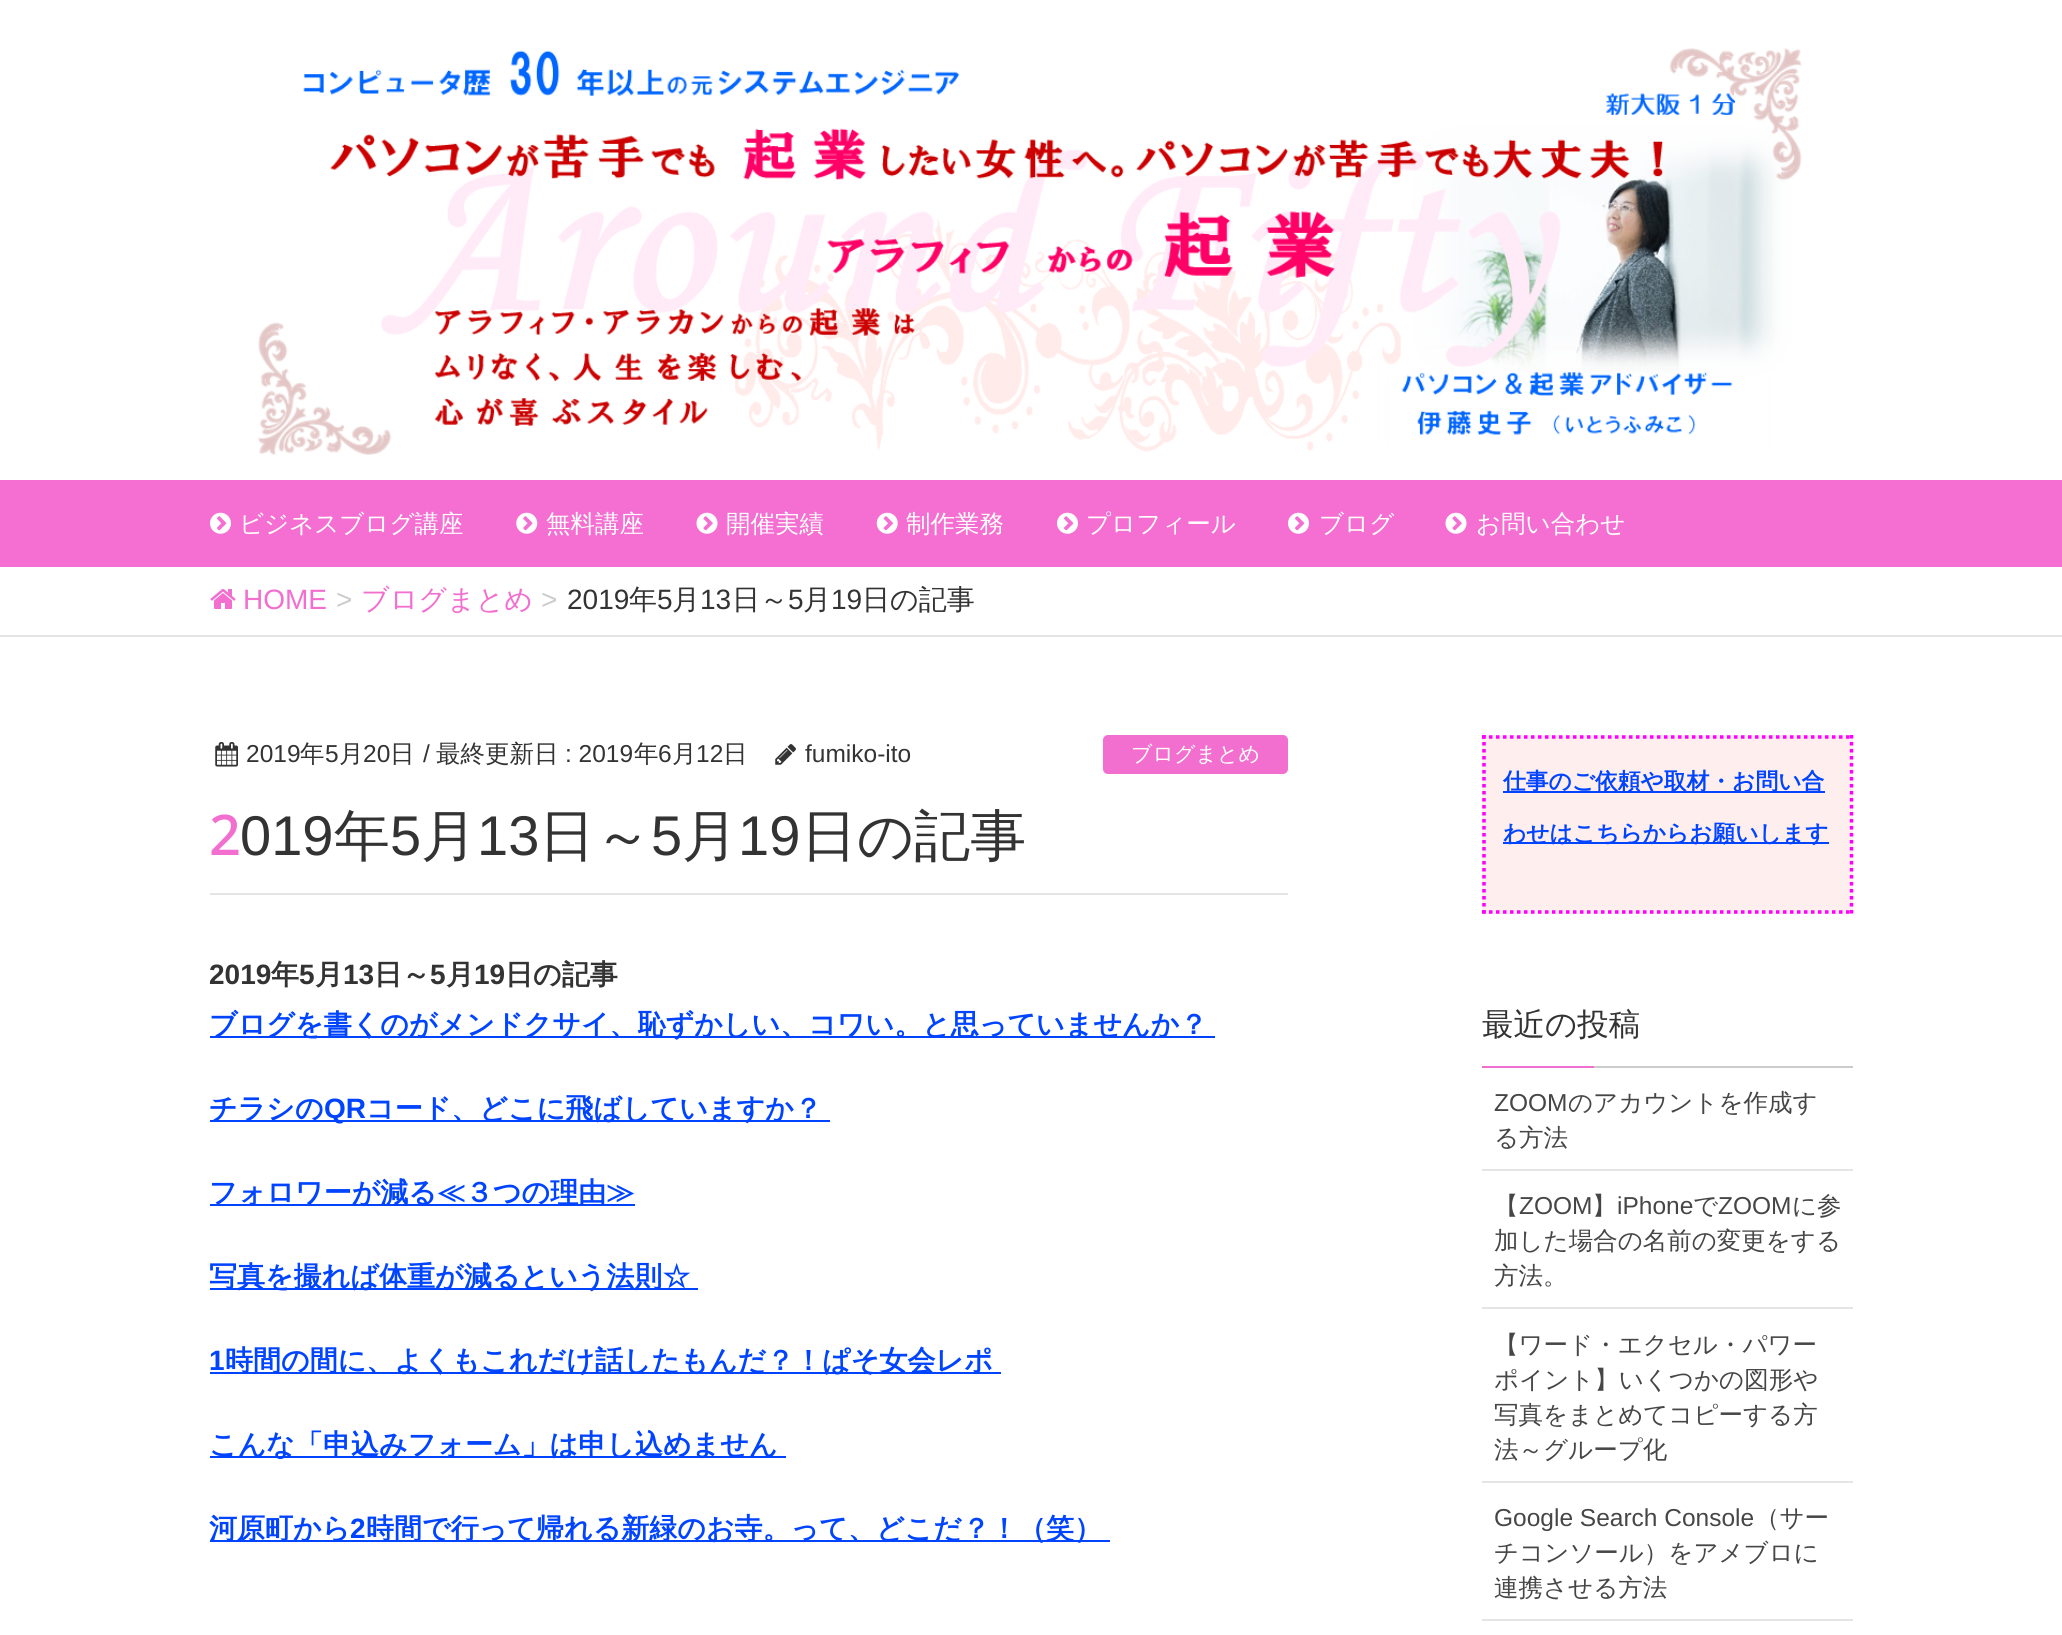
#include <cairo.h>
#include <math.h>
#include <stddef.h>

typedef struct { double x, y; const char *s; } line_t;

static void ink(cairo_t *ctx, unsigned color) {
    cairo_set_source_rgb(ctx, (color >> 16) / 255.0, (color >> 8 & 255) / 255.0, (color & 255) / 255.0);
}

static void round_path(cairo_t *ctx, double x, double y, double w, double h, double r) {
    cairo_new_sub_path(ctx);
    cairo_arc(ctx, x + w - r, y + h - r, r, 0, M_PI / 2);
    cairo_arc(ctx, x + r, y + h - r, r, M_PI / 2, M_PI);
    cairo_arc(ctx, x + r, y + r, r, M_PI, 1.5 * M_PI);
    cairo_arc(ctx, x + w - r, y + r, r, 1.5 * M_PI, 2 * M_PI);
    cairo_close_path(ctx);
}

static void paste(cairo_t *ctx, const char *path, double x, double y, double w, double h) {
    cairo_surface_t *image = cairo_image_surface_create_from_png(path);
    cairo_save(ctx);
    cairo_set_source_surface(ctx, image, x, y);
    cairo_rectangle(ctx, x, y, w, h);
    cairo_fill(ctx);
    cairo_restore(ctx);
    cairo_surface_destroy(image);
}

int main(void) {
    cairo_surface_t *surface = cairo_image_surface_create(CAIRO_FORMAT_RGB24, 2062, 1635);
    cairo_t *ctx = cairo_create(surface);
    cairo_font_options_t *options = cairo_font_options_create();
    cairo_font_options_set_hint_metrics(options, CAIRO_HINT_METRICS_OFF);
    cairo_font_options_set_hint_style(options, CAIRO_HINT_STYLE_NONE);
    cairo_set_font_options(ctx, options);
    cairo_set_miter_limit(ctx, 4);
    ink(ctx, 0xFFFFFF);
    cairo_paint(ctx);
    paste(ctx, "media/1.png", 258, 48, 1544, 407);
    ink(ctx, 0xF46FD1);
    cairo_rectangle(ctx, 0, 480, 2062, 87);
    cairo_fill(ctx);
    paste(ctx, "media/2.png", 210, 512, 21, 22);
    cairo_select_font_face(ctx, "WenQuanYi Zen Hei Medium", CAIRO_FONT_SLANT_NORMAL, CAIRO_FONT_WEIGHT_NORMAL);
    cairo_set_font_size(ctx, 24.5);
    ink(ctx, 0xFFFFFF);
    cairo_move_to(ctx, 239, 532);
    cairo_show_text(ctx, "ビジネスブログ講座");
    paste(ctx, "media/3.png", 516, 512, 22, 22);
    cairo_move_to(ctx, 546, 532);
    cairo_show_text(ctx, "無料講座");
    paste(ctx, "media/4.png", 696, 512, 22, 22);
    cairo_move_to(ctx, 726, 532);
    cairo_show_text(ctx, "開催実績");
    paste(ctx, "media/5.png", 876, 512, 22, 22);
    cairo_move_to(ctx, 906, 532);
    cairo_show_text(ctx, "制作業務");
    paste(ctx, "media/2.png", 1057, 512, 21, 22);
    cairo_move_to(ctx, 1086, 532);
    cairo_show_text(ctx, "プロフィール");
    paste(ctx, "media/2.png", 1288, 512, 21, 22);
    cairo_move_to(ctx, 1319, 532);
    cairo_show_text(ctx, "ブログ");
    paste(ctx, "media/4.png", 1445, 512, 22, 22);
    cairo_move_to(ctx, 1476, 532);
    cairo_show_text(ctx, "お問い合わせ");
    ink(ctx, 0xE5E5E5);
    cairo_rectangle(ctx, 0, 635, 2062, 2);
    cairo_fill(ctx);
    paste(ctx, "media/6.png", 210, 589, 26, 20);
    cairo_select_font_face(ctx, "Liberation Sans", CAIRO_FONT_SLANT_NORMAL, CAIRO_FONT_WEIGHT_NORMAL);
    cairo_set_font_size(ctx, 28);
    ink(ctx, 0xF26FCF);
    cairo_move_to(ctx, 243, 609);
    cairo_show_text(ctx, "HOME");
    ink(ctx, 0xCCCCCC);
    cairo_move_to(ctx, 336, 609);
    cairo_show_text(ctx, ">");
    cairo_select_font_face(ctx, "WenQuanYi Zen Hei Medium", CAIRO_FONT_SLANT_NORMAL, CAIRO_FONT_WEIGHT_NORMAL);
    ink(ctx, 0xF26FCF);
    cairo_move_to(ctx, 361, 609);
    cairo_show_text(ctx, "ブログまとめ");
    cairo_select_font_face(ctx, "Liberation Sans", CAIRO_FONT_SLANT_NORMAL, CAIRO_FONT_WEIGHT_NORMAL);
    ink(ctx, 0xCCCCCC);
    cairo_move_to(ctx, 541, 609);
    cairo_show_text(ctx, ">");
    ink(ctx, 0x333333);
    cairo_move_to(ctx, 567, 609);
    cairo_show_text(ctx, "2019");
    cairo_select_font_face(ctx, "WenQuanYi Zen Hei Medium", CAIRO_FONT_SLANT_NORMAL, CAIRO_FONT_WEIGHT_NORMAL);
    cairo_move_to(ctx, 629, 609);
    cairo_show_text(ctx, "年");
    cairo_select_font_face(ctx, "Liberation Sans", CAIRO_FONT_SLANT_NORMAL, CAIRO_FONT_WEIGHT_NORMAL);
    cairo_move_to(ctx, 657, 609);
    cairo_show_text(ctx, "5");
    cairo_select_font_face(ctx, "WenQuanYi Zen Hei Medium", CAIRO_FONT_SLANT_NORMAL, CAIRO_FONT_WEIGHT_NORMAL);
    cairo_move_to(ctx, 672, 609);
    cairo_show_text(ctx, "月");
    cairo_select_font_face(ctx, "Liberation Sans", CAIRO_FONT_SLANT_NORMAL, CAIRO_FONT_WEIGHT_NORMAL);
    cairo_move_to(ctx, 700, 609);
    cairo_show_text(ctx, "13");
    cairo_select_font_face(ctx, "WenQuanYi Zen Hei Medium", CAIRO_FONT_SLANT_NORMAL, CAIRO_FONT_WEIGHT_NORMAL);
    cairo_move_to(ctx, 732, 609);
    cairo_show_text(ctx, "日～");
    cairo_select_font_face(ctx, "Liberation Sans", CAIRO_FONT_SLANT_NORMAL, CAIRO_FONT_WEIGHT_NORMAL);
    cairo_move_to(ctx, 788, 609);
    cairo_show_text(ctx, "5");
    cairo_select_font_face(ctx, "WenQuanYi Zen Hei Medium", CAIRO_FONT_SLANT_NORMAL, CAIRO_FONT_WEIGHT_NORMAL);
    cairo_move_to(ctx, 803, 609);
    cairo_show_text(ctx, "月");
    cairo_select_font_face(ctx, "Liberation Sans", CAIRO_FONT_SLANT_NORMAL, CAIRO_FONT_WEIGHT_NORMAL);
    cairo_move_to(ctx, 831, 609);
    cairo_show_text(ctx, "19");
    cairo_select_font_face(ctx, "WenQuanYi Zen Hei Medium", CAIRO_FONT_SLANT_NORMAL, CAIRO_FONT_WEIGHT_NORMAL);
    cairo_move_to(ctx, 862, 609);
    cairo_show_text(ctx, "日の記事");
    ink(ctx, 0xE5E5E5);
    cairo_rectangle(ctx, 210, 893, 1078, 2);
    cairo_fill(ctx);
    paste(ctx, "media/7.png", 215, 742, 23, 25);
    cairo_select_font_face(ctx, "Liberation Sans", CAIRO_FONT_SLANT_NORMAL, CAIRO_FONT_WEIGHT_NORMAL);
    cairo_set_font_size(ctx, 24.5);
    ink(ctx, 0x333333);
    cairo_move_to(ctx, 246, 762);
    cairo_show_text(ctx, "2019");
    cairo_select_font_face(ctx, "WenQuanYi Zen Hei Medium", CAIRO_FONT_SLANT_NORMAL, CAIRO_FONT_WEIGHT_NORMAL);
    cairo_move_to(ctx, 300, 762);
    cairo_show_text(ctx, "年");
    cairo_select_font_face(ctx, "Liberation Sans", CAIRO_FONT_SLANT_NORMAL, CAIRO_FONT_WEIGHT_NORMAL);
    cairo_move_to(ctx, 325, 762);
    cairo_show_text(ctx, "5");
    cairo_select_font_face(ctx, "WenQuanYi Zen Hei Medium", CAIRO_FONT_SLANT_NORMAL, CAIRO_FONT_WEIGHT_NORMAL);
    cairo_move_to(ctx, 339, 762);
    cairo_show_text(ctx, "月");
    cairo_select_font_face(ctx, "Liberation Sans", CAIRO_FONT_SLANT_NORMAL, CAIRO_FONT_WEIGHT_NORMAL);
    cairo_move_to(ctx, 363, 762);
    cairo_show_text(ctx, "20");
    cairo_select_font_face(ctx, "WenQuanYi Zen Hei Medium", CAIRO_FONT_SLANT_NORMAL, CAIRO_FONT_WEIGHT_NORMAL);
    cairo_move_to(ctx, 390, 762);
    cairo_show_text(ctx, "日");
    cairo_select_font_face(ctx, "Liberation Sans", CAIRO_FONT_SLANT_NORMAL, CAIRO_FONT_WEIGHT_NORMAL);
    cairo_move_to(ctx, 423, 762);
    cairo_show_text(ctx, "/");
    cairo_select_font_face(ctx, "WenQuanYi Zen Hei Medium", CAIRO_FONT_SLANT_NORMAL, CAIRO_FONT_WEIGHT_NORMAL);
    cairo_move_to(ctx, 436, 762);
    cairo_show_text(ctx, "最終更新日");
    cairo_select_font_face(ctx, "Liberation Sans", CAIRO_FONT_SLANT_NORMAL, CAIRO_FONT_WEIGHT_NORMAL);
    cairo_move_to(ctx, 565, 762);
    cairo_show_text(ctx, ": 2019");
    cairo_select_font_face(ctx, "WenQuanYi Zen Hei Medium", CAIRO_FONT_SLANT_NORMAL, CAIRO_FONT_WEIGHT_NORMAL);
    cairo_move_to(ctx, 634, 762);
    cairo_show_text(ctx, "年");
    cairo_select_font_face(ctx, "Liberation Sans", CAIRO_FONT_SLANT_NORMAL, CAIRO_FONT_WEIGHT_NORMAL);
    cairo_move_to(ctx, 658, 762);
    cairo_show_text(ctx, "6");
    cairo_select_font_face(ctx, "WenQuanYi Zen Hei Medium", CAIRO_FONT_SLANT_NORMAL, CAIRO_FONT_WEIGHT_NORMAL);
    cairo_move_to(ctx, 672, 762);
    cairo_show_text(ctx, "月");
    cairo_select_font_face(ctx, "Liberation Sans", CAIRO_FONT_SLANT_NORMAL, CAIRO_FONT_WEIGHT_NORMAL);
    cairo_move_to(ctx, 696, 762);
    cairo_show_text(ctx, "12");
    cairo_select_font_face(ctx, "WenQuanYi Zen Hei Medium", CAIRO_FONT_SLANT_NORMAL, CAIRO_FONT_WEIGHT_NORMAL);
    cairo_move_to(ctx, 723, 762);
    cairo_show_text(ctx, "日");
    paste(ctx, "media/8.png", 775, 744, 21, 21);
    cairo_select_font_face(ctx, "Liberation Sans", CAIRO_FONT_SLANT_NORMAL, CAIRO_FONT_WEIGHT_NORMAL);
    cairo_move_to(ctx, 805, 762);
    cairo_show_text(ctx, "fumiko-ito");
    ink(ctx, 0xF26FCF);
    round_path(ctx, 1104, 736, 183, 37, 4);
    cairo_fill_preserve(ctx);
    cairo_stroke(ctx);
    cairo_select_font_face(ctx, "WenQuanYi Zen Hei Medium", CAIRO_FONT_SLANT_NORMAL, CAIRO_FONT_WEIGHT_NORMAL);
    cairo_set_font_size(ctx, 21);
    ink(ctx, 0xFFFFFF);
    cairo_move_to(ctx, 1131, 761);
    cairo_show_text(ctx, "ブログまとめ");
    cairo_select_font_face(ctx, "Noto Sans Medium", CAIRO_FONT_SLANT_NORMAL, CAIRO_FONT_WEIGHT_NORMAL);
    cairo_set_font_size(ctx, 56);
    ink(ctx, 0xF26FCF);
    cairo_move_to(ctx, 209, 855);
    cairo_show_text(ctx, "2");
    cairo_select_font_face(ctx, "Liberation Sans", CAIRO_FONT_SLANT_NORMAL, CAIRO_FONT_WEIGHT_NORMAL);
    ink(ctx, 0x333333);
    cairo_move_to(ctx, 240, 855);
    cairo_show_text(ctx, "019");
    cairo_select_font_face(ctx, "WenQuanYi Zen Hei Medium", CAIRO_FONT_SLANT_NORMAL, CAIRO_FONT_WEIGHT_NORMAL);
    cairo_move_to(ctx, 334, 855);
    cairo_show_text(ctx, "年");
    cairo_select_font_face(ctx, "Liberation Sans", CAIRO_FONT_SLANT_NORMAL, CAIRO_FONT_WEIGHT_NORMAL);
    cairo_move_to(ctx, 390, 855);
    cairo_show_text(ctx, "5");
    cairo_select_font_face(ctx, "WenQuanYi Zen Hei Medium", CAIRO_FONT_SLANT_NORMAL, CAIRO_FONT_WEIGHT_NORMAL);
    cairo_move_to(ctx, 421, 855);
    cairo_show_text(ctx, "月");
    cairo_select_font_face(ctx, "Liberation Sans", CAIRO_FONT_SLANT_NORMAL, CAIRO_FONT_WEIGHT_NORMAL);
    cairo_move_to(ctx, 477, 855);
    cairo_show_text(ctx, "13");
    cairo_select_font_face(ctx, "WenQuanYi Zen Hei Medium", CAIRO_FONT_SLANT_NORMAL, CAIRO_FONT_WEIGHT_NORMAL);
    cairo_move_to(ctx, 539, 855);
    cairo_show_text(ctx, "日～");
    cairo_select_font_face(ctx, "Liberation Sans", CAIRO_FONT_SLANT_NORMAL, CAIRO_FONT_WEIGHT_NORMAL);
    cairo_move_to(ctx, 651, 855);
    cairo_show_text(ctx, "5");
    cairo_select_font_face(ctx, "WenQuanYi Zen Hei Medium", CAIRO_FONT_SLANT_NORMAL, CAIRO_FONT_WEIGHT_NORMAL);
    cairo_move_to(ctx, 682, 855);
    cairo_show_text(ctx, "月");
    cairo_select_font_face(ctx, "Liberation Sans", CAIRO_FONT_SLANT_NORMAL, CAIRO_FONT_WEIGHT_NORMAL);
    cairo_move_to(ctx, 738, 855);
    cairo_show_text(ctx, "19");
    cairo_select_font_face(ctx, "WenQuanYi Zen Hei Medium", CAIRO_FONT_SLANT_NORMAL, CAIRO_FONT_WEIGHT_NORMAL);
    cairo_move_to(ctx, 801, 855);
    cairo_show_text(ctx, "日の記事");
    cairo_select_font_face(ctx, "Liberation Sans", CAIRO_FONT_SLANT_NORMAL, CAIRO_FONT_WEIGHT_BOLD);
    cairo_set_font_size(ctx, 28);
    cairo_move_to(ctx, 209, 984);
    cairo_show_text(ctx, "2019");
    cairo_select_font_face(ctx, "WenQuanYi Zen Hei", CAIRO_FONT_SLANT_NORMAL, CAIRO_FONT_WEIGHT_BOLD);
    cairo_move_to(ctx, 271, 984);
    cairo_show_text(ctx, "年");
    cairo_select_font_face(ctx, "Liberation Sans", CAIRO_FONT_SLANT_NORMAL, CAIRO_FONT_WEIGHT_BOLD);
    cairo_move_to(ctx, 299, 984);
    cairo_show_text(ctx, "5");
    cairo_select_font_face(ctx, "WenQuanYi Zen Hei", CAIRO_FONT_SLANT_NORMAL, CAIRO_FONT_WEIGHT_BOLD);
    cairo_move_to(ctx, 315, 984);
    cairo_show_text(ctx, "月");
    cairo_select_font_face(ctx, "Liberation Sans", CAIRO_FONT_SLANT_NORMAL, CAIRO_FONT_WEIGHT_BOLD);
    cairo_move_to(ctx, 343, 984);
    cairo_show_text(ctx, "13");
    cairo_select_font_face(ctx, "WenQuanYi Zen Hei", CAIRO_FONT_SLANT_NORMAL, CAIRO_FONT_WEIGHT_BOLD);
    cairo_move_to(ctx, 374, 984);
    cairo_show_text(ctx, "日～");
    cairo_select_font_face(ctx, "Liberation Sans", CAIRO_FONT_SLANT_NORMAL, CAIRO_FONT_WEIGHT_BOLD);
    cairo_move_to(ctx, 430, 984);
    cairo_show_text(ctx, "5");
    cairo_select_font_face(ctx, "WenQuanYi Zen Hei", CAIRO_FONT_SLANT_NORMAL, CAIRO_FONT_WEIGHT_BOLD);
    cairo_move_to(ctx, 446, 984);
    cairo_show_text(ctx, "月");
    cairo_select_font_face(ctx, "Liberation Sans", CAIRO_FONT_SLANT_NORMAL, CAIRO_FONT_WEIGHT_BOLD);
    cairo_move_to(ctx, 474, 984);
    cairo_show_text(ctx, "19");
    cairo_select_font_face(ctx, "WenQuanYi Zen Hei", CAIRO_FONT_SLANT_NORMAL, CAIRO_FONT_WEIGHT_BOLD);
    cairo_move_to(ctx, 505, 984);
    cairo_show_text(ctx, "日の記事");
    ink(ctx, 0x0044FF);
    cairo_rectangle(ctx, 210, 1036, 1005, 2);
    cairo_fill(ctx);
    cairo_move_to(ctx, 209, 1034);
    cairo_show_text(ctx, "ブログを書くのがメンドクサイ、恥ずかしい、コワい。と思っていませんか？");
    cairo_rectangle(ctx, 210, 1120, 620, 2);
    cairo_fill(ctx);
    cairo_move_to(ctx, 209, 1118);
    cairo_show_text(ctx, "チラシの");
    cairo_select_font_face(ctx, "Liberation Sans", CAIRO_FONT_SLANT_NORMAL, CAIRO_FONT_WEIGHT_BOLD);
    cairo_move_to(ctx, 324, 1118);
    cairo_show_text(ctx, "QR");
    cairo_select_font_face(ctx, "WenQuanYi Zen Hei", CAIRO_FONT_SLANT_NORMAL, CAIRO_FONT_WEIGHT_BOLD);
    cairo_move_to(ctx, 366, 1118);
    cairo_show_text(ctx, "コード、どこに飛ばしていますか？");
    cairo_rectangle(ctx, 210, 1204, 425, 2);
    cairo_fill(ctx);
    cairo_move_to(ctx, 209, 1202);
    cairo_show_text(ctx, "フォロワーが減る≪３つの理由≫");
    cairo_rectangle(ctx, 210, 1288, 488, 2);
    cairo_fill(ctx);
    cairo_move_to(ctx, 209, 1286);
    cairo_show_text(ctx, "写真を撮れば体重が減るという法則☆");
    cairo_select_font_face(ctx, "Liberation Sans", CAIRO_FONT_SLANT_NORMAL, CAIRO_FONT_WEIGHT_BOLD);
    cairo_move_to(ctx, 209, 1370);
    cairo_show_text(ctx, "1");
    cairo_rectangle(ctx, 210, 1372, 791, 2);
    cairo_fill(ctx);
    cairo_select_font_face(ctx, "WenQuanYi Zen Hei", CAIRO_FONT_SLANT_NORMAL, CAIRO_FONT_WEIGHT_BOLD);
    cairo_move_to(ctx, 225, 1370);
    cairo_show_text(ctx, "時間の間に、よくもこれだけ話したもんだ？！ぱそ女会レポ");
    cairo_rectangle(ctx, 210, 1456, 576, 2);
    cairo_fill(ctx);
    cairo_move_to(ctx, 209, 1454);
    cairo_show_text(ctx, "こんな「申込みフォーム」は申し込めません");
    cairo_rectangle(ctx, 210, 1540, 900, 2);
    cairo_fill(ctx);
    cairo_move_to(ctx, 209, 1538);
    cairo_show_text(ctx, "河原町から");
    cairo_select_font_face(ctx, "Liberation Sans", CAIRO_FONT_SLANT_NORMAL, CAIRO_FONT_WEIGHT_BOLD);
    cairo_move_to(ctx, 350, 1538);
    cairo_show_text(ctx, "2");
    cairo_select_font_face(ctx, "WenQuanYi Zen Hei", CAIRO_FONT_SLANT_NORMAL, CAIRO_FONT_WEIGHT_BOLD);
    cairo_move_to(ctx, 366, 1538);
    cairo_show_text(ctx, "時間で行って帰れる新緑のお寺。って、どこだ？！（笑）");
    ink(ctx, 0xFFEEEE);
    cairo_rectangle(ctx, 1482, 735, 371, 179);
    cairo_fill(ctx);
    cairo_new_path(ctx);
    cairo_move_to(ctx, 1482, 737);
    cairo_line_to(ctx, 1853, 737);
    ink(ctx, 0xFF00FF);
    cairo_set_line_width(ctx, 3.5);
    cairo_set_dash(ctx, (double[]){3.5, 3.5}, 2, 0);
    cairo_stroke(ctx);
    cairo_new_path(ctx);
    cairo_move_to(ctx, 1851.5, 735);
    cairo_line_to(ctx, 1851.5, 913.5);
    cairo_stroke(ctx);
    cairo_new_path(ctx);
    cairo_move_to(ctx, 1482, 912);
    cairo_line_to(ctx, 1853, 912);
    cairo_stroke(ctx);
    cairo_new_path(ctx);
    cairo_move_to(ctx, 1484, 735);
    cairo_line_to(ctx, 1484, 913.5);
    cairo_stroke(ctx);
    ink(ctx, 0x0044FF);
    cairo_rectangle(ctx, 1503, 791, 322, 2);
    cairo_fill(ctx);
    cairo_set_font_size(ctx, 22.75);
    cairo_move_to(ctx, 1503, 789);
    cairo_show_text(ctx, "仕事のご依頼や取材・お問い合");
    cairo_rectangle(ctx, 1503, 842, 326, 2);
    cairo_fill(ctx);
    cairo_move_to(ctx, 1503, 841);
    cairo_show_text(ctx, "わせはこちらからお願いします");
    ink(ctx, 0xCCCCCC);
    cairo_rectangle(ctx, 1594, 1066, 259, 2);
    cairo_fill(ctx);
    cairo_select_font_face(ctx, "WenQuanYi Zen Hei Medium", CAIRO_FONT_SLANT_NORMAL, CAIRO_FONT_WEIGHT_NORMAL);
    cairo_set_font_size(ctx, 31.5);
    ink(ctx, 0x333333);
    cairo_move_to(ctx, 1482, 1035);
    cairo_show_text(ctx, "最近の投稿");
    ink(ctx, 0xF26FCF);
    cairo_rectangle(ctx, 1482, 1066, 112, 2);
    cairo_fill(ctx);
    ink(ctx, 0xE5E5E5);
    cairo_rectangle(ctx, 1482, 1169, 371, 2);
    cairo_fill(ctx);
    cairo_select_font_face(ctx, "Liberation Sans", CAIRO_FONT_SLANT_NORMAL, CAIRO_FONT_WEIGHT_NORMAL);
    cairo_set_font_size(ctx, 24.5);
    ink(ctx, 0x464646);
    cairo_move_to(ctx, 1494, 1111);
    cairo_show_text(ctx, "ZOOM");
    cairo_select_font_face(ctx, "WenQuanYi Zen Hei Medium", CAIRO_FONT_SLANT_NORMAL, CAIRO_FONT_WEIGHT_NORMAL);
    cairo_move_to(ctx, 1568, 1111);
    cairo_show_text(ctx, "のアカウントを作成す");
    cairo_move_to(ctx, 1494, 1146);
    cairo_show_text(ctx, "る方法");
    ink(ctx, 0xE5E5E5);
    cairo_rectangle(ctx, 1482, 1307, 371, 2);
    cairo_fill(ctx);
    ink(ctx, 0x464646);
    cairo_move_to(ctx, 1494, 1214);
    cairo_show_text(ctx, "【");
    cairo_select_font_face(ctx, "Liberation Sans", CAIRO_FONT_SLANT_NORMAL, CAIRO_FONT_WEIGHT_NORMAL);
    cairo_move_to(ctx, 1519, 1214);
    cairo_show_text(ctx, "ZOOM");
    cairo_select_font_face(ctx, "WenQuanYi Zen Hei Medium", CAIRO_FONT_SLANT_NORMAL, CAIRO_FONT_WEIGHT_NORMAL);
    cairo_move_to(ctx, 1592, 1214);
    cairo_show_text(ctx, "】");
    cairo_select_font_face(ctx, "Liberation Sans", CAIRO_FONT_SLANT_NORMAL, CAIRO_FONT_WEIGHT_NORMAL);
    cairo_move_to(ctx, 1617, 1214);
    cairo_show_text(ctx, "iPhone");
    cairo_select_font_face(ctx, "WenQuanYi Zen Hei Medium", CAIRO_FONT_SLANT_NORMAL, CAIRO_FONT_WEIGHT_NORMAL);
    cairo_move_to(ctx, 1693, 1214);
    cairo_show_text(ctx, "で");
    cairo_select_font_face(ctx, "Liberation Sans", CAIRO_FONT_SLANT_NORMAL, CAIRO_FONT_WEIGHT_NORMAL);
    cairo_move_to(ctx, 1718, 1214);
    cairo_show_text(ctx, "ZOOM");
    cairo_select_font_face(ctx, "WenQuanYi Zen Hei Medium", CAIRO_FONT_SLANT_NORMAL, CAIRO_FONT_WEIGHT_NORMAL);
    {
        static const line_t items[] = {
            {1792, 1214, "に参"},
            {1494, 1249, "加した場合の名前の変更をする"},
            {1494, 1284, "方法。"},
        };
        for (size_t i = 0; i < sizeof items / sizeof *items; i++) {
            cairo_move_to(ctx, items[i].x, items[i].y);
            cairo_show_text(ctx, items[i].s);
        }
    }
    ink(ctx, 0xE5E5E5);
    cairo_rectangle(ctx, 1482, 1481, 371, 2);
    cairo_fill(ctx);
    ink(ctx, 0x464646);
    {
        static const line_t items[] = {
            {1494, 1353, "【ワード・エクセル・パワー"},
            {1494, 1388, "ポイント】いくつかの図形や"},
            {1494, 1423, "写真をまとめてコピーする方"},
            {1494, 1458, "法～グループ化"},
        };
        for (size_t i = 0; i < sizeof items / sizeof *items; i++) {
            cairo_move_to(ctx, items[i].x, items[i].y);
            cairo_show_text(ctx, items[i].s);
        }
    }
    ink(ctx, 0xE5E5E5);
    cairo_rectangle(ctx, 1482, 1619, 371, 2);
    cairo_fill(ctx);
    cairo_select_font_face(ctx, "Liberation Sans", CAIRO_FONT_SLANT_NORMAL, CAIRO_FONT_WEIGHT_NORMAL);
    ink(ctx, 0x464646);
    cairo_move_to(ctx, 1494, 1526);
    cairo_show_text(ctx, "Google Search Console");
    cairo_select_font_face(ctx, "WenQuanYi Zen Hei Medium", CAIRO_FONT_SLANT_NORMAL, CAIRO_FONT_WEIGHT_NORMAL);
    {
        static const line_t items[] = {
            {1755, 1526, "（サー"},
            {1494, 1561, "チコンソール）をアメブロに"},
            {1494, 1596, "連携させる方法"},
        };
        for (size_t i = 0; i < sizeof items / sizeof *items; i++) {
            cairo_move_to(ctx, items[i].x, items[i].y);
            cairo_show_text(ctx, items[i].s);
        }
    }
    cairo_surface_write_to_png(surface, "image.png");
    cairo_font_options_destroy(options);
    cairo_destroy(ctx);
    cairo_surface_destroy(surface);
    return 0;
}
